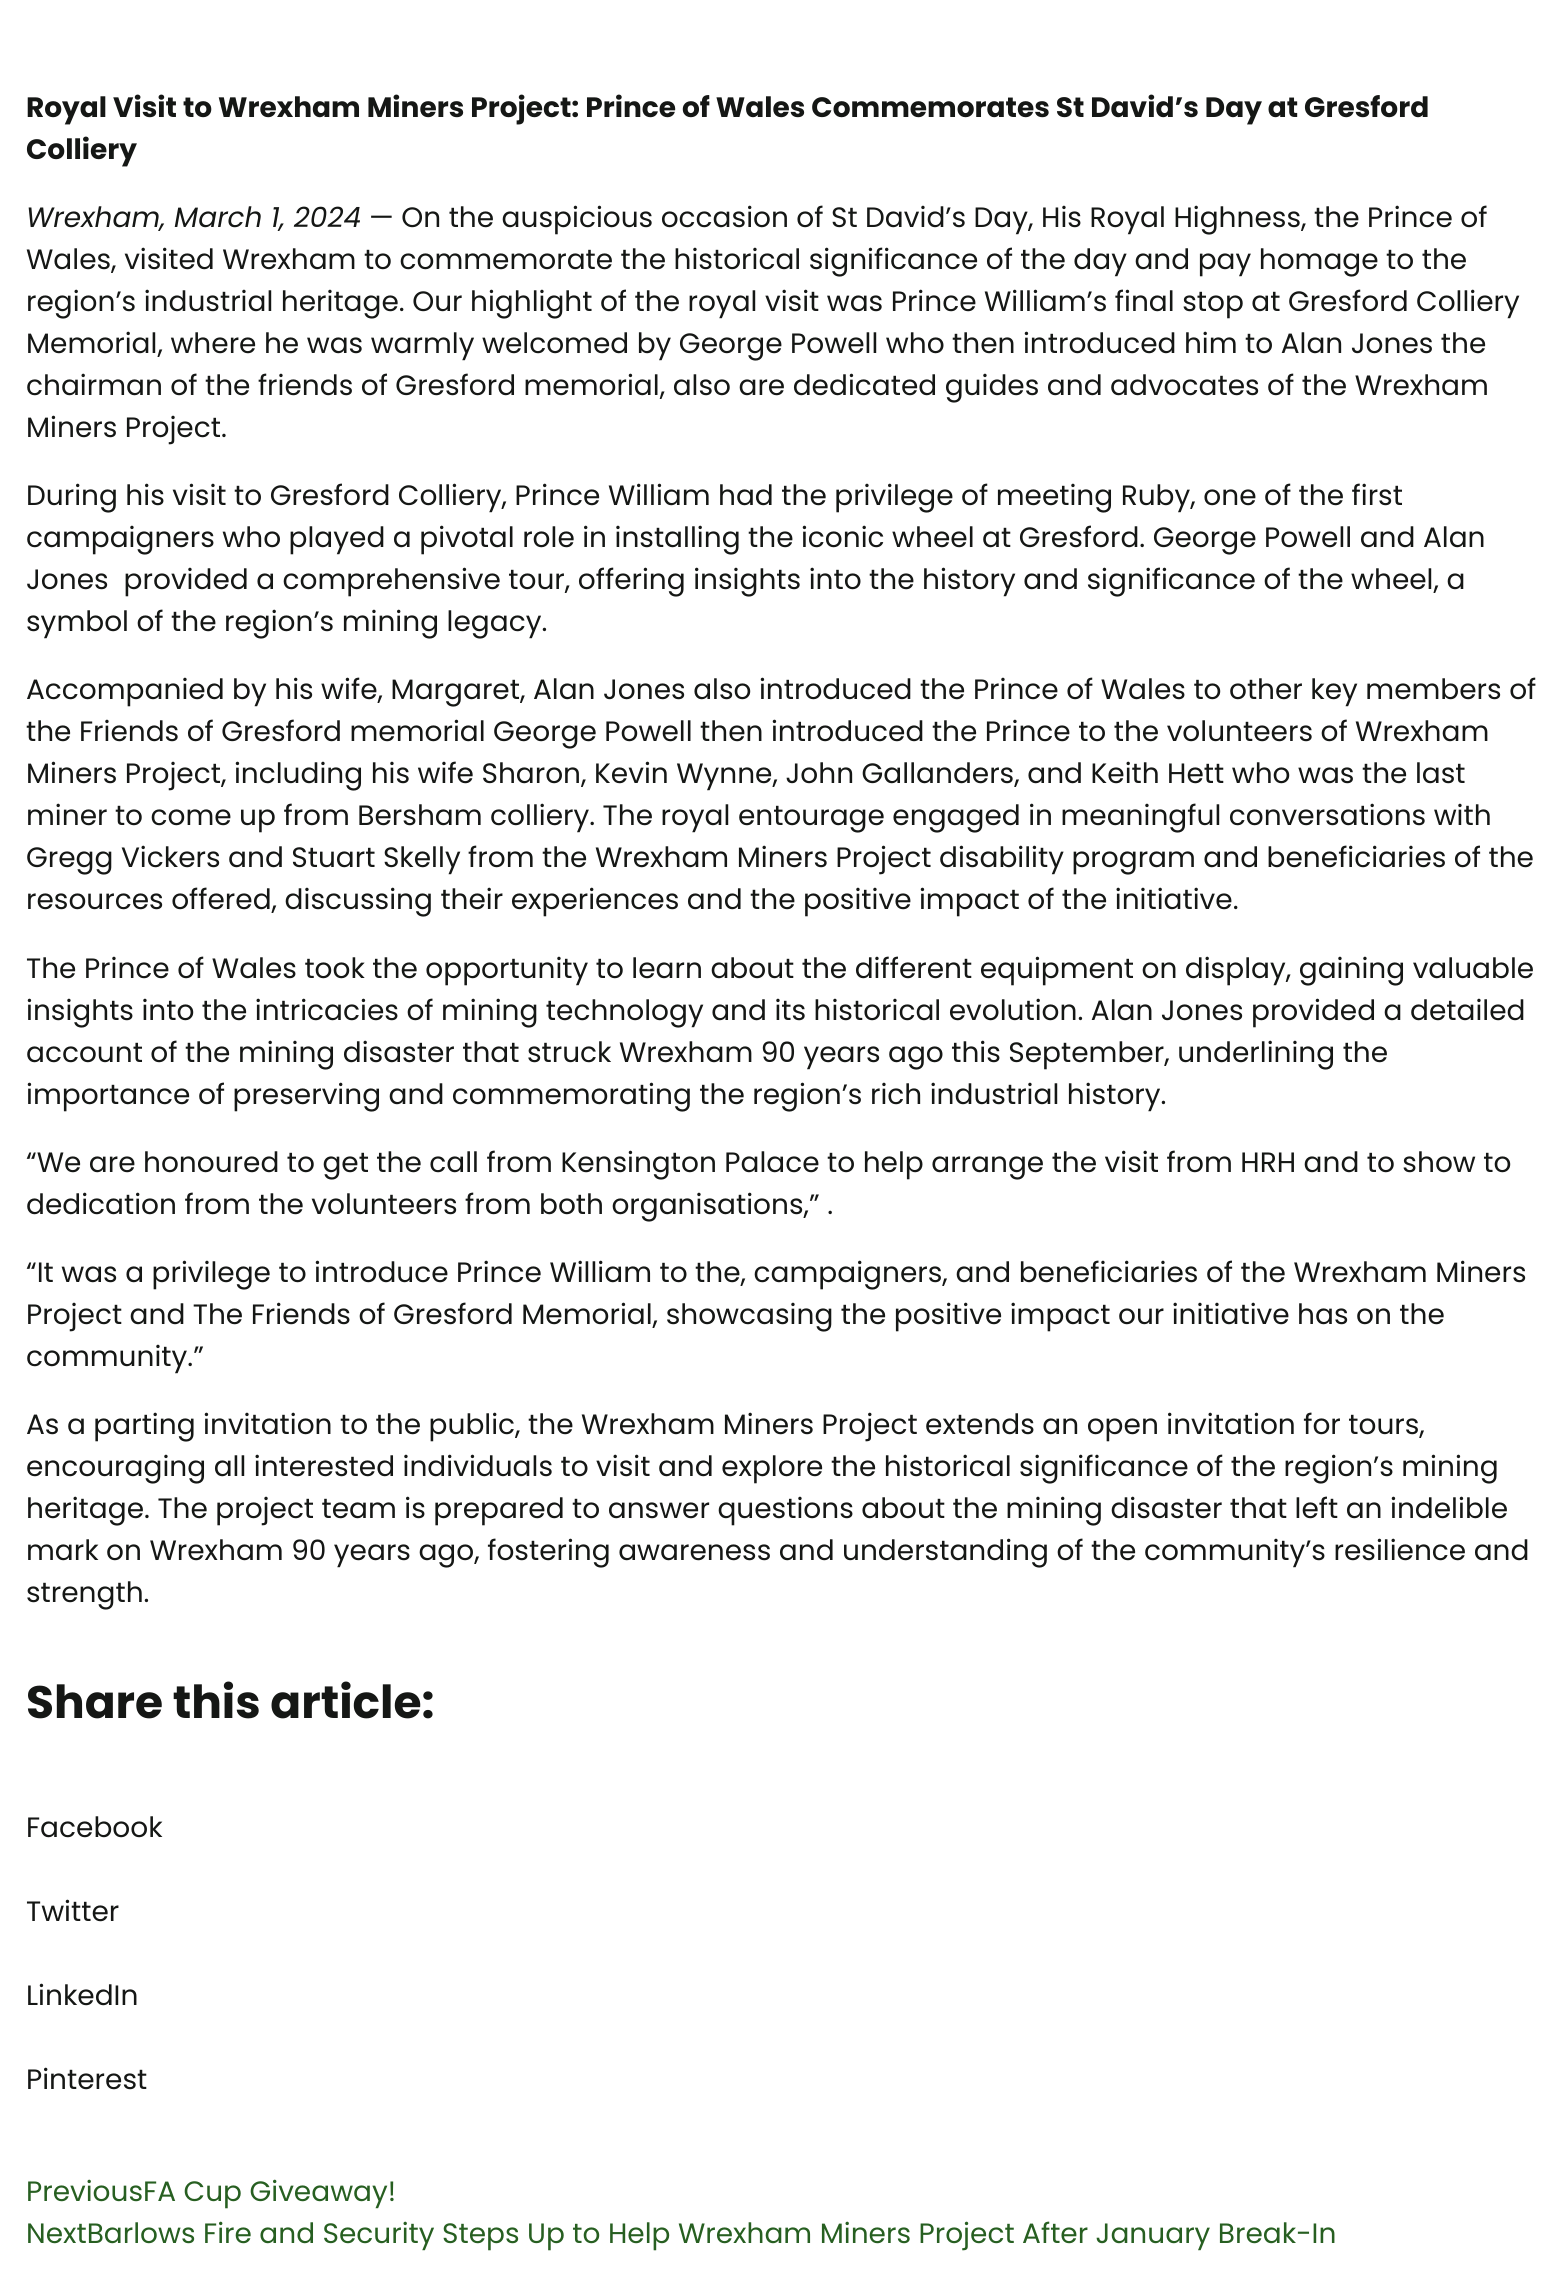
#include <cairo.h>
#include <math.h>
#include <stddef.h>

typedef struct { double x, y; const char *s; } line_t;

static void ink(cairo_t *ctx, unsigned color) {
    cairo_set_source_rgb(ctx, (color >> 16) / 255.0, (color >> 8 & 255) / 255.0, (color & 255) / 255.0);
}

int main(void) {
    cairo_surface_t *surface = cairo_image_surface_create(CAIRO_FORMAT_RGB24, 1568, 2276);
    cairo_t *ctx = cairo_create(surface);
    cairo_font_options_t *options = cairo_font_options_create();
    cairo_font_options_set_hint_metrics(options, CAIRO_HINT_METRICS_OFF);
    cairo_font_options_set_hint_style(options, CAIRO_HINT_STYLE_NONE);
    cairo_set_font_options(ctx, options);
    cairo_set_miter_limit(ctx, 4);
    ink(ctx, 0xFFFFFF);
    cairo_paint(ctx);
    cairo_select_font_face(ctx, "Poppins", CAIRO_FONT_SLANT_NORMAL, CAIRO_FONT_WEIGHT_BOLD);
    cairo_set_font_size(ctx, 28);
    ink(ctx, 0x151715);
    cairo_move_to(ctx, 26, 117);
    cairo_show_text(ctx, "Royal Visit to Wrexham Miners Project: Prince of Wales Commemorates St David’s Day at Gresford");
    cairo_move_to(ctx, 26, 159);
    cairo_show_text(ctx, "Colliery");
    cairo_select_font_face(ctx, "Poppins", CAIRO_FONT_SLANT_ITALIC, CAIRO_FONT_WEIGHT_NORMAL);
    cairo_move_to(ctx, 26, 227);
    cairo_show_text(ctx, "Wrexham, March 1, 2024");
    cairo_select_font_face(ctx, "Poppins", CAIRO_FONT_SLANT_NORMAL, CAIRO_FONT_WEIGHT_NORMAL);
    {
        static const line_t items[] = {
            {369, 227, "— On the auspicious occasion of St David’s Day, His Royal Highness, the Prince of"},
            {26, 269, "Wales, visited Wrexham to commemorate the historical significance of the day and pay homage to the"},
            {26, 311, "region’s industrial heritage. Our highlight of the royal visit was Prince William’s final stop at Gresford Colliery"},
            {26, 353, "Memorial, where he was warmly welcomed by George Powell who then introduced him to Alan Jones the"},
            {26, 395, "chairman of the friends of Gresford memorial, also are dedicated guides and advocates of the Wrexham"},
            {26, 437, "Miners Project."},
            {26, 505, "During his visit to Gresford Colliery, Prince William had the privilege of meeting Ruby, one of the first"},
            {26, 547, "campaigners who played a pivotal role in installing the iconic wheel at Gresford. George Powell and Alan"},
            {26, 589, "Jones  provided a comprehensive tour, offering insights into the history and significance of the wheel, a"},
            {26, 631, "symbol of the region’s mining legacy."},
            {26, 699, "Accompanied by his wife, Margaret, Alan Jones also introduced the Prince of Wales to other key members of"},
            {26, 741, "the Friends of Gresford memorial George Powell then introduced the Prince to the volunteers of Wrexham"},
            {26, 783, "Miners Project, including his wife Sharon, Kevin Wynne, John Gallanders, and Keith Hett who was the last"},
            {26, 825, "miner to come up from Bersham colliery. The royal entourage engaged in meaningful conversations with"},
            {26, 867, "Gregg Vickers and Stuart Skelly from the Wrexham Miners Project disability program and beneficiaries of the"},
            {26, 909, "resources offered, discussing their experiences and the positive impact of the initiative."},
            {26, 978, "The Prince of Wales took the opportunity to learn about the different equipment on display, gaining valuable"},
            {26, 1020, "insights into the intricacies of mining technology and its historical evolution. Alan Jones provided a detailed"},
            {26, 1062, "account of the mining disaster that struck Wrexham 90 years ago this September, underlining the"},
            {26, 1104, "importance of preserving and commemorating the region’s rich industrial history."},
            {26, 1172, "“We are honoured to get the call from Kensington Palace to help arrange the visit from HRH and to show to"},
            {26, 1214, "dedication from the volunteers from both organisations,” ."},
            {26, 1282, "“It was a privilege to introduce Prince William to the, campaigners, and beneficiaries of the Wrexham Miners"},
            {26, 1324, "Project and The Friends of Gresford Memorial, showcasing the positive impact our initiative has on the"},
            {26, 1366, "community.”"},
            {26, 1434, "As a parting invitation to the public, the Wrexham Miners Project extends an open invitation for tours,"},
            {26, 1476, "encouraging all interested individuals to visit and explore the historical significance of the region’s mining"},
            {26, 1518, "heritage. The project team is prepared to answer questions about the mining disaster that left an indelible"},
            {26, 1560, "mark on Wrexham 90 years ago, fostering awareness and understanding of the community’s resilience and"},
            {26, 1602, "strength."},
        };
        for (size_t i = 0; i < sizeof items / sizeof *items; i++) {
            cairo_move_to(ctx, items[i].x, items[i].y);
            cairo_show_text(ctx, items[i].s);
        }
    }
    cairo_select_font_face(ctx, "Poppins", CAIRO_FONT_SLANT_NORMAL, CAIRO_FONT_WEIGHT_BOLD);
    cairo_set_font_size(ctx, 45.5);
    cairo_move_to(ctx, 26, 1718);
    cairo_show_text(ctx, "Share this article:");
    cairo_select_font_face(ctx, "Poppins", CAIRO_FONT_SLANT_NORMAL, CAIRO_FONT_WEIGHT_NORMAL);
    cairo_set_font_size(ctx, 28);
    {
        static const line_t items[] = {
            {26, 1837, "Facebook"},
            {26, 1921, "Twitter"},
            {26, 2005, "LinkedIn"},
            {26, 2089, "Pinterest"},
        };
        for (size_t i = 0; i < sizeof items / sizeof *items; i++) {
            cairo_move_to(ctx, items[i].x, items[i].y);
            cairo_show_text(ctx, items[i].s);
        }
    }
    ink(ctx, 0x275F21);
    cairo_move_to(ctx, 26, 2201);
    cairo_show_text(ctx, "PreviousFA Cup Giveaway!");
    cairo_move_to(ctx, 26, 2243);
    cairo_show_text(ctx, "NextBarlows Fire and Security Steps Up to Help Wrexham Miners Project After January Break-In");
    cairo_surface_write_to_png(surface, "image.png");
    cairo_font_options_destroy(options);
    cairo_destroy(ctx);
    cairo_surface_destroy(surface);
    return 0;
}
